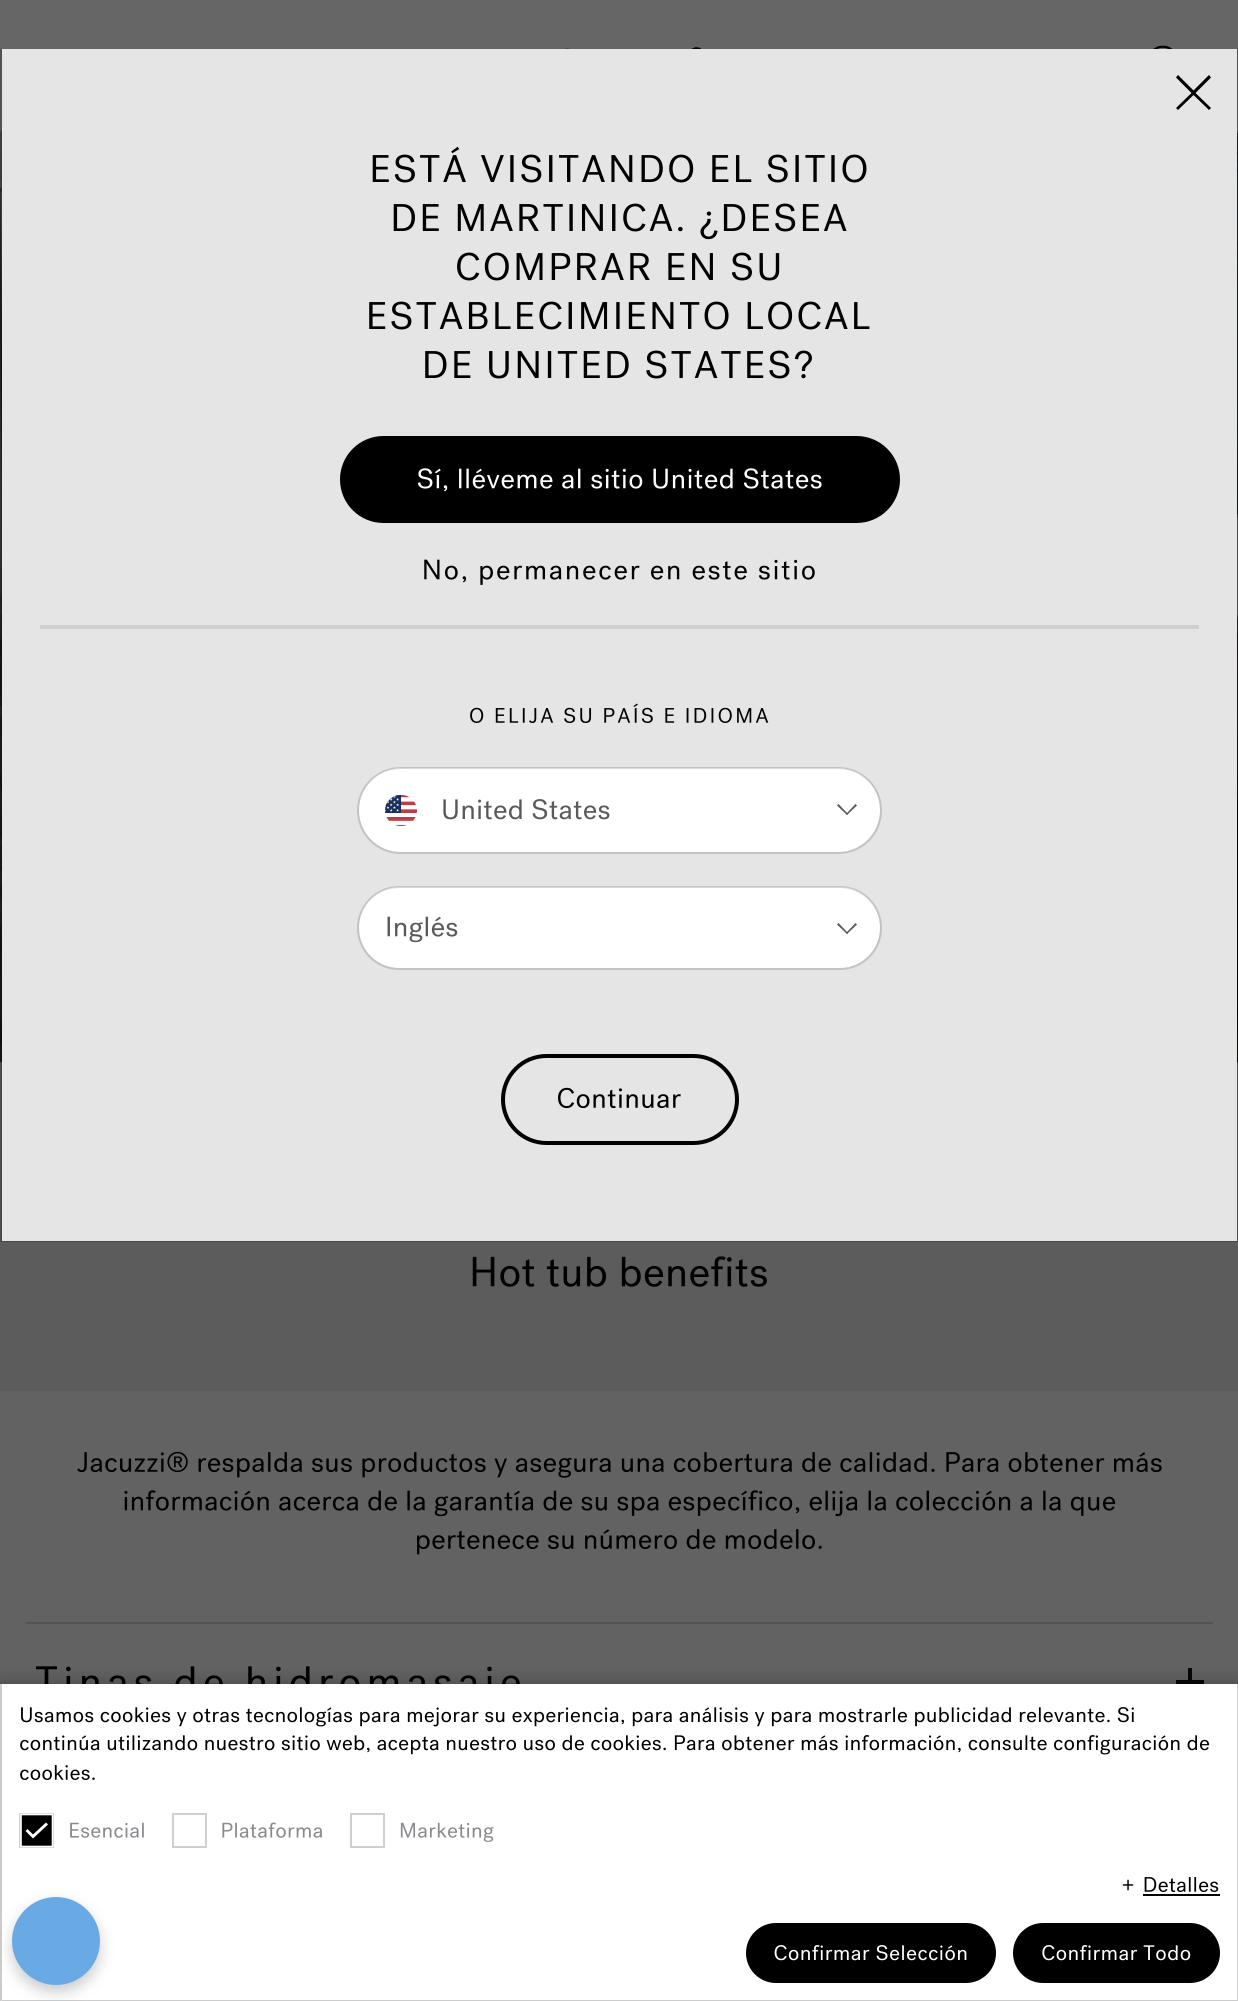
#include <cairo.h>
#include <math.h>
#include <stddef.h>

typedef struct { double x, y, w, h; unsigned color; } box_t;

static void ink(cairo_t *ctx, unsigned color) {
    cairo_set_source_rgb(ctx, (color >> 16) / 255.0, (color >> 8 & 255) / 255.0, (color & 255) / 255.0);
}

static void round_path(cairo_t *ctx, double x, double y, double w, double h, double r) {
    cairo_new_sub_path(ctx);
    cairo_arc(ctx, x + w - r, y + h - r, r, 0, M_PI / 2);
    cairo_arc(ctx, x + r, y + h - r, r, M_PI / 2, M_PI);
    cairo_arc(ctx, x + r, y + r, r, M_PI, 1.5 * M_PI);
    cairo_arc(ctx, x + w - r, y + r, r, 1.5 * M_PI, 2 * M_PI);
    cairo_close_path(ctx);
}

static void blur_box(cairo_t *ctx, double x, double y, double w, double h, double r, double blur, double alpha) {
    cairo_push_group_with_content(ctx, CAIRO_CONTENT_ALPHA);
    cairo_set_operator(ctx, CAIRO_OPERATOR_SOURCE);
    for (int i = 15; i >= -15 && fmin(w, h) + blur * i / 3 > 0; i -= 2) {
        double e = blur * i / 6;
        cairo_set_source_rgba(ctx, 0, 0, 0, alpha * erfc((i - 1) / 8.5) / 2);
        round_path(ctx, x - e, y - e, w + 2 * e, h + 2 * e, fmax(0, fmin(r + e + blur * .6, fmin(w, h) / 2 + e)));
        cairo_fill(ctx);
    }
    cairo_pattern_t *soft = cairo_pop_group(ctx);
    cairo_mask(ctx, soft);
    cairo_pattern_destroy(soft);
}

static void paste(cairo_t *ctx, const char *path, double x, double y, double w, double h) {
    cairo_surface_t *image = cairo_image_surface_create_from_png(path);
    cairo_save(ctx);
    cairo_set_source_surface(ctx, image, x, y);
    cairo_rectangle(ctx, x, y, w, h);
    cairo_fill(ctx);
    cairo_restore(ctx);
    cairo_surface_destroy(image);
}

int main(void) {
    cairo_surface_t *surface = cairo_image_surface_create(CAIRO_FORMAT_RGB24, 1238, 2001);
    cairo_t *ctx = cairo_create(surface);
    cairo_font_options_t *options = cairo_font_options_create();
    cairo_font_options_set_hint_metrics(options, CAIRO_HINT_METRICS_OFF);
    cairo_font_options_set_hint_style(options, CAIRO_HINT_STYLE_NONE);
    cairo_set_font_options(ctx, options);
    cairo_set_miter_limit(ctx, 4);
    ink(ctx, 0x626262);
    cairo_paint(ctx);
    ink(ctx, 0x666666);
    cairo_rectangle(ctx, 0, 0, 1238, 131);
    cairo_fill(ctx);
    ink(ctx, 0x535352);
    cairo_rectangle(ctx, 0, 131, 1238, 2);
    cairo_fill(ctx);
    paste(ctx, "media/1.png", 564, 47, 137, 2);
    paste(ctx, "media/2.png", 1153, 45, 20, 4);
    ink(ctx, 0x5C5C5C);
    cairo_rectangle(ctx, 0, 1062, 1238, 329);
    cairo_fill(ctx);
    paste(ctx, "media/3.png", 0, 133, 1238, 930);
    paste(ctx, "media/4.png", 472, 1256, 295, 31);
    paste(ctx, "media/5.png", 77, 1451, 1085, 27);
    paste(ctx, "media/6.png", 124, 1490, 992, 27);
    paste(ctx, "media/7.png", 417, 1529, 405, 26);
    ink(ctx, 0x535352);
    cairo_rectangle(ctx, 26, 1622, 1187, 2);
    cairo_fill(ctx);
    paste(ctx, "media/8.png", 35, 1666, 485, 18);
    {
        static const box_t items[] = {
            {1188, 1668, 4, 12, 0x070707},
            {1176, 1680, 28, 4, 0x070707},
            {2, 49, 1235, 1192, 0xE5E5E5},
        };
        for (size_t i = 0; i < sizeof items / sizeof *items; i++) {
            ink(ctx, items[i].color);
            cairo_rectangle(ctx, items[i].x, items[i].y, items[i].w, items[i].h);
            cairo_fill(ctx);
        }
    }
    cairo_set_source_rgba(ctx, 0, 0, 0, 0.2);
    cairo_new_path(ctx);
    cairo_move_to(ctx, 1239, 49);
    cairo_line_to(ctx, 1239, 1242);
    cairo_line_to(ctx, 1237, 1241);
    cairo_line_to(ctx, 1237, 49);
    cairo_close_path(ctx);
    cairo_fill(ctx);
    cairo_new_path(ctx);
    cairo_move_to(ctx, 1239, 1242);
    cairo_line_to(ctx, 0, 1242);
    cairo_line_to(ctx, 2, 1241);
    cairo_line_to(ctx, 1237, 1241);
    cairo_close_path(ctx);
    cairo_fill(ctx);
    cairo_new_path(ctx);
    cairo_move_to(ctx, 0, 1242);
    cairo_line_to(ctx, 0, 49);
    cairo_line_to(ctx, 2, 49);
    cairo_line_to(ctx, 2, 1241);
    cairo_close_path(ctx);
    cairo_fill(ctx);
    ink(ctx, 0x000000);
    cairo_set_fill_rule(ctx, CAIRO_FILL_RULE_EVEN_ODD);
    cairo_new_path(ctx);
    cairo_move_to(ctx, 1211, 77.5);
    cairo_line_to(ctx, 1209, 75);
    cairo_line_to(ctx, 1193.5, 90.5);
    cairo_line_to(ctx, 1178, 75);
    cairo_line_to(ctx, 1176, 77.5);
    cairo_line_to(ctx, 1191.5, 93);
    cairo_line_to(ctx, 1176, 108);
    cairo_line_to(ctx, 1178, 110);
    cairo_line_to(ctx, 1193.5, 95);
    cairo_line_to(ctx, 1209, 110);
    cairo_line_to(ctx, 1211, 108);
    cairo_line_to(ctx, 1195.5, 93);
    cairo_close_path(ctx);
    cairo_fill(ctx);
    paste(ctx, "media/9.png", 372, 146, 495, 37);
    paste(ctx, "media/10.png", 393, 203, 454, 37);
    paste(ctx, "media/11.png", 457, 252, 323, 29);
    paste(ctx, "media/12.png", 369, 301, 501, 29);
    paste(ctx, "media/13.png", 425, 350, 387, 29);
    round_path(ctx, 341, 437, 558, 85, 42.5);
    cairo_fill_preserve(ctx);
    cairo_stroke(ctx);
    paste(ctx, "media/14.png", 417, 468, 405, 24);
    paste(ctx, "media/15.png", 424, 559, 391, 26);
    ink(ctx, 0xCFCFCD);
    cairo_rectangle(ctx, 40, 625, 1159, 4);
    cairo_fill(ctx);
    paste(ctx, "media/16.png", 470, 703, 299, 20);
    ink(ctx, 0xFFFFFF);
    round_path(ctx, 359, 768, 521, 84, 42);
    cairo_fill(ctx);
    round_path(ctx, 358, 768, 523, 85, 42.5);
    cairo_set_source_rgba(ctx, 0, 0, 0, 0.15);
    cairo_stroke(ctx);
    paste(ctx, "media/17.png", 385, 795, 32, 31);
    paste(ctx, "media/18.png", 443, 799, 167, 21);
    ink(ctx, 0x58595A);
    cairo_set_fill_rule(ctx, CAIRO_FILL_RULE_WINDING);
    cairo_new_path(ctx);
    cairo_move_to(ctx, 855.5, 804);
    cairo_line_to(ctx, 857, 805.5);
    cairo_line_to(ctx, 847, 815);
    cairo_line_to(ctx, 846, 814);
    cairo_close_path(ctx);
    cairo_fill(ctx);
    cairo_new_path(ctx);
    cairo_move_to(ctx, 838.5, 804);
    cairo_line_to(ctx, 848, 814);
    cairo_line_to(ctx, 847, 815);
    cairo_line_to(ctx, 837, 805.5);
    cairo_close_path(ctx);
    cairo_fill(ctx);
    ink(ctx, 0xFFFFFF);
    round_path(ctx, 359, 887, 521, 81, 40.5);
    cairo_fill(ctx);
    round_path(ctx, 358, 887, 523, 82, 41);
    cairo_set_source_rgba(ctx, 0, 0, 0, 0.15);
    cairo_stroke(ctx);
    paste(ctx, "media/19.png", 387, 916, 71, 27);
    ink(ctx, 0x58595A);
    cairo_new_path(ctx);
    cairo_move_to(ctx, 855.5, 923);
    cairo_line_to(ctx, 857, 924.5);
    cairo_line_to(ctx, 847, 934);
    cairo_line_to(ctx, 846, 933);
    cairo_close_path(ctx);
    cairo_fill(ctx);
    cairo_new_path(ctx);
    cairo_move_to(ctx, 838.5, 923);
    cairo_line_to(ctx, 848, 933);
    cairo_line_to(ctx, 847, 934);
    cairo_line_to(ctx, 837, 924.5);
    cairo_close_path(ctx);
    cairo_fill(ctx);
    round_path(ctx, 503, 1056, 234, 87, 43.5);
    ink(ctx, 0x000000);
    cairo_set_line_width(ctx, 4);
    cairo_stroke(ctx);
    paste(ctx, "media/20.png", 558, 1087, 123, 22);
    ink(ctx, 0x000000);
    blur_box(ctx, 0, 1684, 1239, 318, 0, 9, 0.3);
    ink(ctx, 0xFFFFFF);
    cairo_rectangle(ctx, 1, 1684, 1237, 317);
    cairo_fill(ctx);
    ink(ctx, 0xCCCCCC);
    cairo_new_path(ctx);
    cairo_move_to(ctx, 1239, 1684);
    cairo_line_to(ctx, 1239, 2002);
    cairo_line_to(ctx, 1237, 2000);
    cairo_line_to(ctx, 1237, 1684);
    cairo_close_path(ctx);
    cairo_fill(ctx);
    cairo_set_source_rgba(ctx, 0, 0, 0, 0.2);
    cairo_new_path(ctx);
    cairo_move_to(ctx, 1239, 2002);
    cairo_line_to(ctx, 0, 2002);
    cairo_line_to(ctx, 2, 2000);
    cairo_line_to(ctx, 1237, 2000);
    cairo_close_path(ctx);
    cairo_fill(ctx);
    ink(ctx, 0xCCCCCC);
    cairo_new_path(ctx);
    cairo_move_to(ctx, 0, 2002);
    cairo_line_to(ctx, 0, 1684);
    cairo_line_to(ctx, 2, 1684);
    cairo_line_to(ctx, 2, 2000);
    cairo_close_path(ctx);
    cairo_fill(ctx);
    paste(ctx, "media/21.png", 21, 1707, 1113, 20);
    paste(ctx, "media/22.png", 20, 1735, 1190, 20);
    paste(ctx, "media/23.png", 20, 1765, 75, 15);
    cairo_rectangle(ctx, 20, 1814, 33, 33);
    ink(ctx, 0xCFCFCD);
    cairo_set_line_width(ctx, 2);
    cairo_stroke(ctx);
    ink(ctx, 0x000000);
    cairo_rectangle(ctx, 21, 1815, 31, 31);
    cairo_fill(ctx);
    cairo_new_path(ctx);
    cairo_move_to(ctx, 21, 1814.5);
    cairo_line_to(ctx, 52.5, 1814.5);
    cairo_line_to(ctx, 52.5, 1846.5);
    cairo_line_to(ctx, 21, 1846.5);
    cairo_close_path(ctx);
    ink(ctx, 0xFFFFFF);
    cairo_set_line_width(ctx, 1.6);
    cairo_stroke(ctx);
    cairo_new_path(ctx);
    cairo_move_to(ctx, 25.5, 1831);
    cairo_line_to(ctx, 33, 1838.5);
    cairo_line_to(ctx, 48, 1824.5);
    cairo_line_to(ctx, 46, 1822.5);
    cairo_line_to(ctx, 33, 1834.5);
    cairo_line_to(ctx, 27.5, 1829);
    cairo_close_path(ctx);
    cairo_fill(ctx);
    paste(ctx, "media/24.png", 70, 1822, 74, 16);
    cairo_rectangle(ctx, 173, 1814, 33, 33);
    ink(ctx, 0xCFCFCD);
    cairo_set_line_width(ctx, 2);
    cairo_stroke(ctx);
    paste(ctx, "media/25.png", 222, 1822, 100, 16);
    cairo_rectangle(ctx, 351, 1814, 33, 33);
    cairo_stroke(ctx);
    paste(ctx, "media/26.png", 400, 1822, 94, 20);
    paste(ctx, "media/27.png", 1122, 1879, 12, 12);
    paste(ctx, "media/28.png", 1144, 1877, 75, 15);
    ink(ctx, 0x000000);
    cairo_rectangle(ctx, 1143, 1894, 77, 2);
    cairo_fill(ctx);
    round_path(ctx, 747, 1924, 248, 58, 29);
    cairo_fill_preserve(ctx);
    cairo_stroke(ctx);
    paste(ctx, "media/29.png", 774, 1945, 193, 16);
    round_path(ctx, 1014, 1924, 205, 58, 29);
    cairo_fill_preserve(ctx);
    cairo_stroke(ctx);
    paste(ctx, "media/30.png", 1042, 1945, 149, 16);
    ink(ctx, 0x000000);
    blur_box(ctx, 12, 1904, 88, 88, 44, 7, 0.2);
    ink(ctx, 0x6AAAE4);
    cairo_arc(ctx, 56, 1941, 44, 0, 2 * M_PI);
    cairo_fill(ctx);
    cairo_surface_write_to_png(surface, "image.png");
    cairo_font_options_destroy(options);
    cairo_destroy(ctx);
    cairo_surface_destroy(surface);
    return 0;
}
